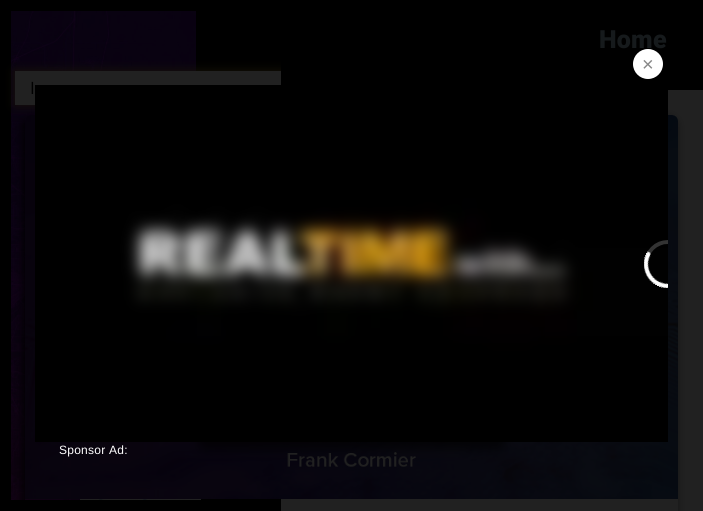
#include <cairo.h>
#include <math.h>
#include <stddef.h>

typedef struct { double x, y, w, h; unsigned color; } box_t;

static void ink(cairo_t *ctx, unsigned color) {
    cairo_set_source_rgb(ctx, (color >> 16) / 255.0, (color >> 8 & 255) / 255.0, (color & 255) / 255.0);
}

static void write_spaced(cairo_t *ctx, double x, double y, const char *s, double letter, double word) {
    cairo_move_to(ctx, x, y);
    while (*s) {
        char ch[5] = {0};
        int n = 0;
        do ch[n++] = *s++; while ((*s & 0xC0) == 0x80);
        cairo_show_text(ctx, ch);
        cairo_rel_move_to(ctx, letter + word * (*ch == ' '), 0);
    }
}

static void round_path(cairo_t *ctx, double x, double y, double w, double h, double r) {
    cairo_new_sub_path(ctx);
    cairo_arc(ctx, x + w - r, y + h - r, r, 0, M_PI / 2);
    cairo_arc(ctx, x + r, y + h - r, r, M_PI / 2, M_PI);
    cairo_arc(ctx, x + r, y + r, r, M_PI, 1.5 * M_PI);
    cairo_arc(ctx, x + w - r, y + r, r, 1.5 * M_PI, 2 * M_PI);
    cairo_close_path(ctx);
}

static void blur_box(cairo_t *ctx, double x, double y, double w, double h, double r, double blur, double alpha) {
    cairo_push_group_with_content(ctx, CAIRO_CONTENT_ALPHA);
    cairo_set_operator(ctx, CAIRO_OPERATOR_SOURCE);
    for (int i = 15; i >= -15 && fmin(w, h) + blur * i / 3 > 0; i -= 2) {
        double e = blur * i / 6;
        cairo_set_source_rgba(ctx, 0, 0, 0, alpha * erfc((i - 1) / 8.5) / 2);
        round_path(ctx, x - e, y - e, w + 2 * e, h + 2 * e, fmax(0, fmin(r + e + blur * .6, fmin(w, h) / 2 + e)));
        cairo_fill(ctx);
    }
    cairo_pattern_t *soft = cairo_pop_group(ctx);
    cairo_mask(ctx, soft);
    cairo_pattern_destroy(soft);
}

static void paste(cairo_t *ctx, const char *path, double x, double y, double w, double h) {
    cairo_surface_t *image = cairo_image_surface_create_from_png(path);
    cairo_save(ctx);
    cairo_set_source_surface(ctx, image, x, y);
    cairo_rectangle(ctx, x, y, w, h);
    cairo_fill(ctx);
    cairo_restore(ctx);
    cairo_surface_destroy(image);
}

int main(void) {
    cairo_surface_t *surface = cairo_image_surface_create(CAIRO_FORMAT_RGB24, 703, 511);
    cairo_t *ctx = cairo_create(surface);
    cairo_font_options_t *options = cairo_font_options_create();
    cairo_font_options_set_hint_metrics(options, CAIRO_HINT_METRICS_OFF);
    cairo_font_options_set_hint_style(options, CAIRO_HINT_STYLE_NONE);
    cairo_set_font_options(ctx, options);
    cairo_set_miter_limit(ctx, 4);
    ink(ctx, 0x212121);
    cairo_paint(ctx);
    ink(ctx, 0x000000);
    cairo_rectangle(ctx, 195, 11, 86, 489);
    cairo_fill(ctx);
    paste(ctx, "media/1.png", 11, 11, 185, 489);
    {
        static const box_t items[] = {
            {0, 0, 11, 511, 0x000000},
            {11, 0, 270, 11, 0x000000},
            {11, 500, 270, 11, 0x000000},
            {80, 499, 121, 1, 0x212121},
        };
        for (size_t i = 0; i < sizeof items / sizeof *items; i++) {
            ink(ctx, items[i].color);
            cairo_rectangle(ctx, items[i].x, items[i].y, items[i].w, items[i].h);
            cairo_fill(ctx);
        }
    }
    paste(ctx, "media/2.png", 94, 499, 95, 1);
    ink(ctx, 0x1A1406);
    blur_box(ctx, 15, 71, 289, 34, 0, 5, 0.9);
    ink(ctx, 0x000000);
    cairo_rectangle(ctx, 281, 0, 422, 90);
    cairo_fill(ctx);
    cairo_select_font_face(ctx, "Roboto Black", CAIRO_FONT_SLANT_NORMAL, CAIRO_FONT_WEIGHT_NORMAL);
    cairo_set_font_size(ctx, 25);
    ink(ctx, 0x161A1C);
    write_spaced(ctx, 599, 48, "Home", 0.25, 0);
    ink(ctx, 0x212121);
    cairo_rectangle(ctx, 15, 71, 266, 34);
    cairo_fill(ctx);
    cairo_select_font_face(ctx, "Open Sans", CAIRO_FONT_SLANT_NORMAL, CAIRO_FONT_WEIGHT_NORMAL);
    cairo_set_font_size(ctx, 17);
    ink(ctx, 0x000000);
    write_spaced(ctx, 30, 94, "I", 0.25, 0);
    cairo_save(ctx);
    cairo_set_fill_rule(ctx, CAIRO_FILL_RULE_EVEN_ODD);
    cairo_new_path(ctx);
    cairo_move_to(ctx, 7, 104);
    cairo_line_to(ctx, 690, 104);
    cairo_line_to(ctx, 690, 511);
    cairo_line_to(ctx, 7, 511);
    cairo_close_path(ctx);
    cairo_move_to(ctx, 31, 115);
    cairo_line_to(ctx, 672, 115);
    cairo_curve_to(ctx, 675.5, 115, 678, 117.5, 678, 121);
    cairo_line_to(ctx, 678, 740);
    cairo_curve_to(ctx, 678, 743.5, 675.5, 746, 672, 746);
    cairo_line_to(ctx, 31, 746);
    cairo_curve_to(ctx, 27.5, 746, 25, 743.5, 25, 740);
    cairo_line_to(ctx, 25, 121);
    cairo_curve_to(ctx, 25, 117.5, 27.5, 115, 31, 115);
    cairo_close_path(ctx);
    cairo_clip(ctx);
    ink(ctx, 0x000000);
    blur_box(ctx, 23, 120, 651, 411, 5, 5, 1);
    cairo_restore(ctx);
    paste(ctx, "media/3.png", 25, 115, 653, 384);
    ink(ctx, 0xFFFFFF);
    cairo_arc(ctx, 648, 64, 15, 0, 2 * M_PI);
    cairo_fill(ctx);
    cairo_select_font_face(ctx, "Liberation Sans", CAIRO_FONT_SLANT_NORMAL, CAIRO_FONT_WEIGHT_NORMAL);
    cairo_set_font_size(ctx, 20);
    ink(ctx, 0x888888);
    cairo_move_to(ctx, 642, 71);
    cairo_show_text(ctx, "×");
    paste(ctx, "media/4.png", 35, 85, 633, 357);
    cairo_set_font_size(ctx, 12);
    ink(ctx, 0xFFFFFF);
    write_spaced(ctx, 59, 454, "Sponsor Ad:", 0.25, 0);
    cairo_surface_write_to_png(surface, "image.png");
    cairo_font_options_destroy(options);
    cairo_destroy(ctx);
    cairo_surface_destroy(surface);
    return 0;
}
